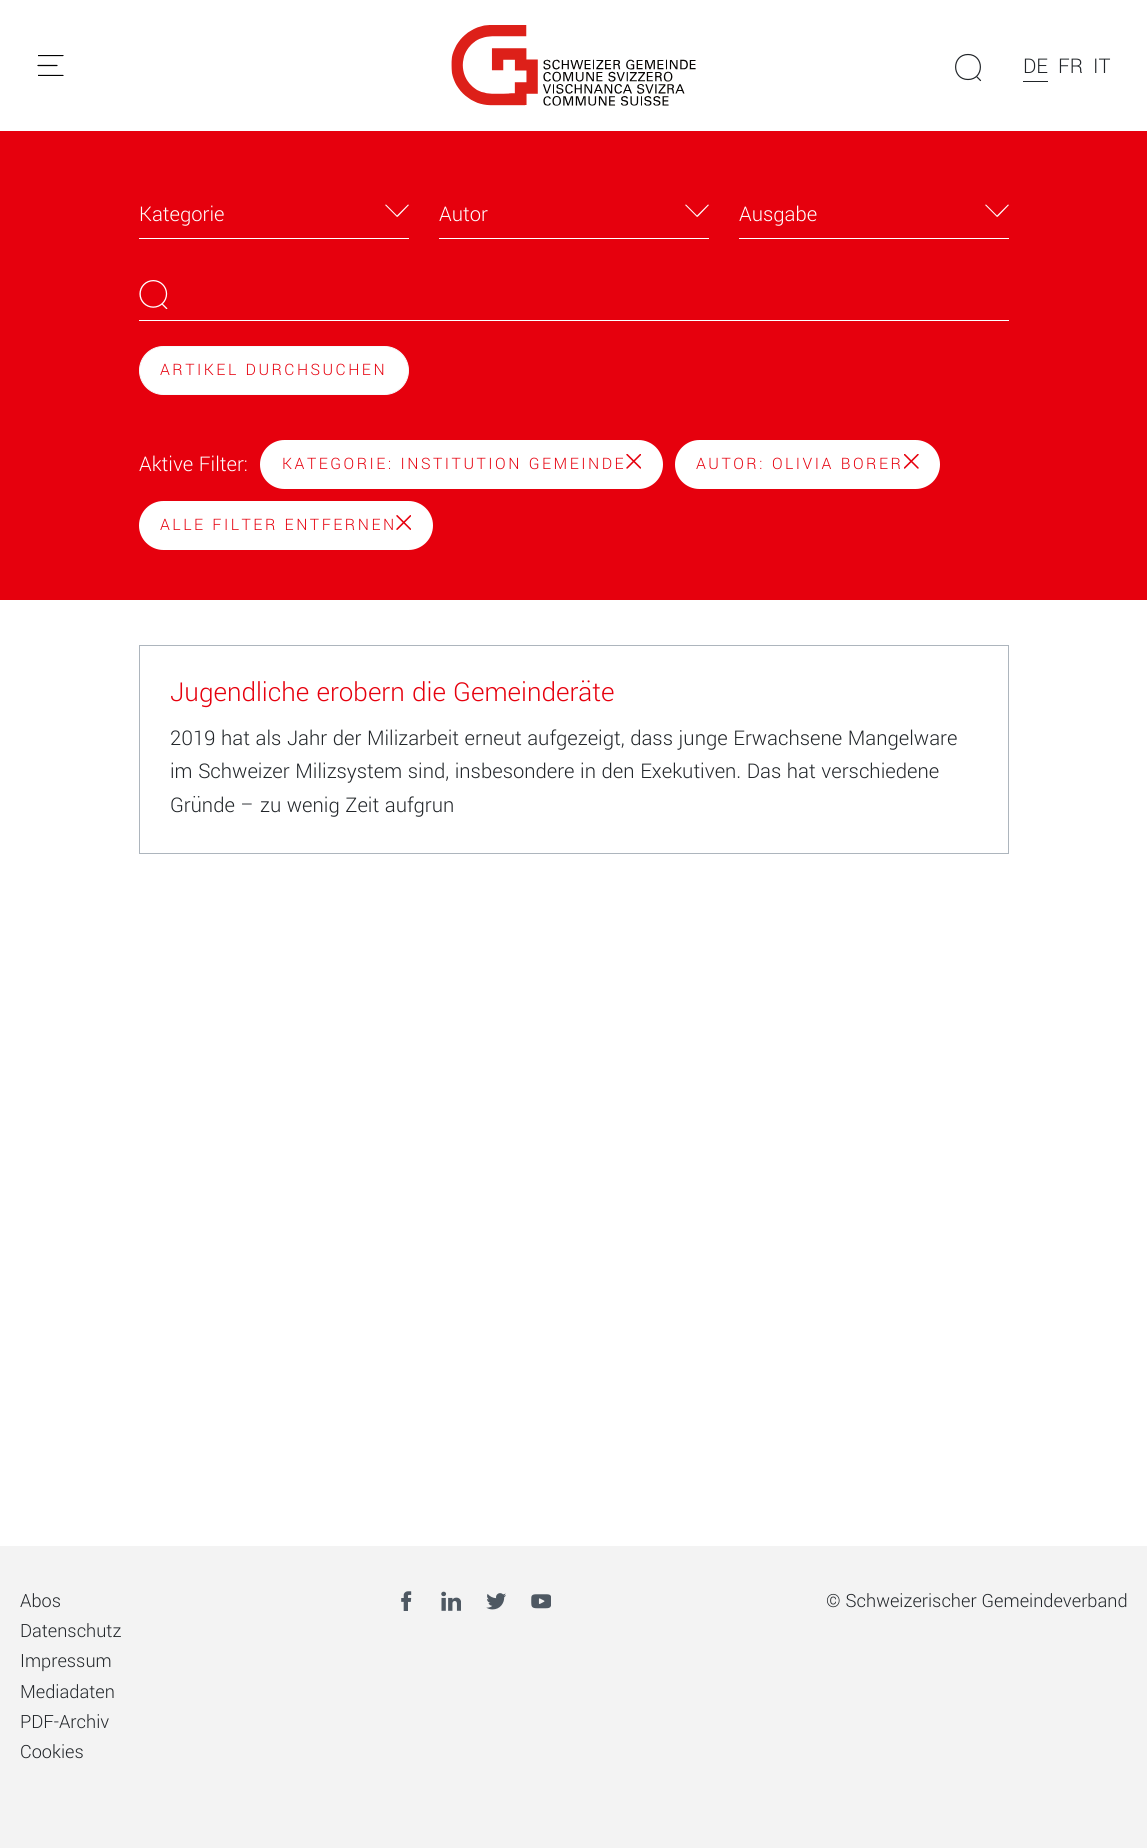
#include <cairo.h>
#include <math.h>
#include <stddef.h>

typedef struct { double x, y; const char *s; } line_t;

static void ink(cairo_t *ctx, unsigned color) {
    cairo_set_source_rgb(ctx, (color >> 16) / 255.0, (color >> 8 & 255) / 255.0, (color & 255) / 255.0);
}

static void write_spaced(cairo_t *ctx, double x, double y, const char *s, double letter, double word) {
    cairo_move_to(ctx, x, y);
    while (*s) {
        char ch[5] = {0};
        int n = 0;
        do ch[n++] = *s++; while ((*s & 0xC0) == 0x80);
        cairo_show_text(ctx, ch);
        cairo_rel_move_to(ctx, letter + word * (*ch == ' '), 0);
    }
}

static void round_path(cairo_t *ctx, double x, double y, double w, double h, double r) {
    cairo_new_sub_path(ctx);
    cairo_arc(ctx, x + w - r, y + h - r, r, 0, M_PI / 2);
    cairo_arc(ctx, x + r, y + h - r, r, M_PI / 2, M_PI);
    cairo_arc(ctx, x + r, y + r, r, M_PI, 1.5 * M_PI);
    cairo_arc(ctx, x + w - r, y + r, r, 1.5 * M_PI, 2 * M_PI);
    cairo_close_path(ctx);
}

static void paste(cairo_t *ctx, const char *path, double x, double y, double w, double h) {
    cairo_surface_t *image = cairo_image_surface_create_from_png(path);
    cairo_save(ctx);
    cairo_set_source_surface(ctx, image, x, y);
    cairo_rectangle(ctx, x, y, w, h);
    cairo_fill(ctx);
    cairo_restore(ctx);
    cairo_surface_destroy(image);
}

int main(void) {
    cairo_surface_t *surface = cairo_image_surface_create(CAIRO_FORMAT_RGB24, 1147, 1848);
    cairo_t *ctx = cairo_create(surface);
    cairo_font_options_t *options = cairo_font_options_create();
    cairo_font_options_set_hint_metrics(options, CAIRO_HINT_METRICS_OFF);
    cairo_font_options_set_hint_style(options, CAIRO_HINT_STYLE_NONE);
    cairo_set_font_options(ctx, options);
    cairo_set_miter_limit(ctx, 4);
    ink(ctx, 0xFFFFFF);
    cairo_paint(ctx);
    cairo_save(ctx);
    cairo_rectangle(ctx, 38, 55, 26, 21);
    cairo_clip(ctx);
    cairo_new_path(ctx);
    cairo_move_to(ctx, 38, 75.5);
    cairo_line_to(ctx, 63, 75.5);
    ink(ctx, 0x000000);
    cairo_set_line_width(ctx, 1.2);
    cairo_set_line_cap(ctx, CAIRO_LINE_CAP_ROUND);
    cairo_stroke(ctx);
    cairo_restore(ctx);
    cairo_new_path(ctx);
    cairo_move_to(ctx, 38, 65.5);
    cairo_line_to(ctx, 57, 65.5);
    ink(ctx, 0x000000);
    cairo_set_line_width(ctx, 1.2);
    cairo_set_line_cap(ctx, CAIRO_LINE_CAP_ROUND);
    cairo_stroke(ctx);
    cairo_save(ctx);
    cairo_rectangle(ctx, 38, 55, 26, 21);
    cairo_clip(ctx);
    cairo_new_path(ctx);
    cairo_move_to(ctx, 38, 55.5);
    cairo_line_to(ctx, 63, 55.5);
    cairo_stroke(ctx);
    cairo_restore(ctx);
    paste(ctx, "media/1.png", 451, 25, 245, 81);
    cairo_new_path(ctx);
    cairo_move_to(ctx, 968, 54.5);
    cairo_curve_to(ctx, 951.5, 54.5, 951.5, 79.5, 968, 79.5);
    cairo_curve_to(ctx, 984.5, 79.5, 984.5, 54.5, 968, 54.5);
    cairo_close_path(ctx);
    ink(ctx, 0x212529);
    cairo_set_line_cap(ctx, CAIRO_LINE_CAP_BUTT);
    cairo_stroke(ctx);
    cairo_new_path(ctx);
    cairo_move_to(ctx, 977, 77);
    cairo_line_to(ctx, 980.5, 80.5);
    cairo_set_line_cap(ctx, CAIRO_LINE_CAP_ROUND);
    cairo_stroke(ctx);
    cairo_select_font_face(ctx, "Yantramanav Light", CAIRO_FONT_SLANT_NORMAL, CAIRO_FONT_WEIGHT_NORMAL);
    cairo_set_font_size(ctx, 22.5);
    cairo_move_to(ctx, 1023, 73);
    cairo_show_text(ctx, "DE");
    cairo_rectangle(ctx, 1023, 81, 25, 1);
    cairo_fill(ctx);
    cairo_move_to(ctx, 1058, 73);
    cairo_show_text(ctx, "FR");
    cairo_move_to(ctx, 1093, 73);
    cairo_show_text(ctx, "IT");
    ink(ctx, 0xE6000D);
    cairo_rectangle(ctx, 0, 131, 1147, 469);
    cairo_fill(ctx);
    ink(ctx, 0xFFFFFF);
    cairo_rectangle(ctx, 139, 238, 270, 1);
    cairo_fill(ctx);
    cairo_move_to(ctx, 139, 221);
    cairo_show_text(ctx, "Kategorie");
    cairo_new_path(ctx);
    cairo_move_to(ctx, 398, 216.5);
    cairo_line_to(ctx, 409, 205);
    cairo_line_to(ctx, 408, 204.5);
    cairo_line_to(ctx, 397, 215.5);
    cairo_line_to(ctx, 386, 204.5);
    cairo_line_to(ctx, 385, 205);
    cairo_line_to(ctx, 397, 217);
    cairo_close_path(ctx);
    cairo_fill(ctx);
    cairo_rectangle(ctx, 439, 238, 270, 1);
    cairo_fill(ctx);
    cairo_move_to(ctx, 439, 221);
    cairo_show_text(ctx, "Autor");
    cairo_new_path(ctx);
    cairo_move_to(ctx, 698, 216.5);
    cairo_line_to(ctx, 709, 205);
    cairo_line_to(ctx, 708, 204.5);
    cairo_line_to(ctx, 697, 215.5);
    cairo_line_to(ctx, 686, 204.5);
    cairo_line_to(ctx, 685, 205);
    cairo_line_to(ctx, 697, 217);
    cairo_close_path(ctx);
    cairo_fill(ctx);
    cairo_rectangle(ctx, 739, 238, 270, 1);
    cairo_fill(ctx);
    cairo_move_to(ctx, 739, 221);
    cairo_show_text(ctx, "Ausgabe");
    cairo_new_path(ctx);
    cairo_move_to(ctx, 998, 216.5);
    cairo_line_to(ctx, 1009, 205);
    cairo_line_to(ctx, 1008, 204.5);
    cairo_line_to(ctx, 997, 215.5);
    cairo_line_to(ctx, 986, 204.5);
    cairo_line_to(ctx, 985, 205);
    cairo_line_to(ctx, 997, 217);
    cairo_close_path(ctx);
    cairo_fill(ctx);
    paste(ctx, "media/2.png", 139, 280, 29, 29);
    cairo_rectangle(ctx, 139, 320, 870, 1);
    cairo_fill(ctx);
    round_path(ctx, 139.5, 346.5, 269, 48, 24);
    cairo_fill_preserve(ctx);
    ink(ctx, 0xF8F9FA);
    cairo_set_line_width(ctx, 1);
    cairo_set_line_cap(ctx, CAIRO_LINE_CAP_BUTT);
    cairo_stroke(ctx);
    cairo_set_font_size(ctx, 17.5);
    ink(ctx, 0xE6000D);
    write_spaced(ctx, 160, 375, "ARTIKEL DURCHSUCHEN", 2.5, 0);
    cairo_set_font_size(ctx, 22.5);
    ink(ctx, 0xFFFFFF);
    cairo_move_to(ctx, 139, 471);
    cairo_show_text(ctx, "Aktive Filter:");
    round_path(ctx, 260, 440, 403, 49, 24.5);
    cairo_fill(ctx);
    cairo_set_font_size(ctx, 17.5);
    ink(ctx, 0xE6000D);
    write_spaced(ctx, 282, 469, "KATEGORIE: INSTITUTION GEMEINDE", 2.5, 0);
    paste(ctx, "media/3.png", 626, 454, 15, 15);
    ink(ctx, 0xFFFFFF);
    round_path(ctx, 675, 440, 265, 49, 24.5);
    cairo_fill(ctx);
    ink(ctx, 0xE6000D);
    write_spaced(ctx, 696, 469, "AUTOR: OLIVIA BORER", 2.5, 0);
    paste(ctx, "media/4.png", 904, 454, 15, 15);
    ink(ctx, 0xFFFFFF);
    round_path(ctx, 139, 501, 294, 49, 24.5);
    cairo_fill(ctx);
    ink(ctx, 0xE6000D);
    write_spaced(ctx, 160, 530, "ALLE FILTER ENTFERNEN", 2.5, 0);
    paste(ctx, "media/5.png", 396, 515, 15, 15);
    cairo_rectangle(ctx, 139.5, 645.5, 869, 208);
    ink(ctx, 0xADB5BD);
    cairo_stroke(ctx);
    cairo_set_font_size(ctx, 29);
    ink(ctx, 0xE6000D);
    cairo_move_to(ctx, 170, 701);
    cairo_show_text(ctx, "Jugendliche erobern die Gemeinderäte");
    cairo_set_font_size(ctx, 22.5);
    ink(ctx, 0x212529);
    {
        static const line_t items[] = {
            {170, 745, "2019 hat als Jahr der Milizarbeit erneut aufgezeigt, dass junge Erwachsene Mangelware"},
            {170, 778, "im Schweizer Milizsystem sind, insbesondere in den Exekutiven. Das hat verschiedene"},
            {170, 812, "Gründe – zu wenig Zeit aufgrun"},
        };
        for (size_t i = 0; i < sizeof items / sizeof *items; i++) {
            cairo_move_to(ctx, items[i].x, items[i].y);
            cairo_show_text(ctx, items[i].s);
        }
    }
    ink(ctx, 0xF3F3F3);
    cairo_rectangle(ctx, 0, 1546, 1147, 302);
    cairo_fill(ctx);
    cairo_set_font_size(ctx, 20.25);
    ink(ctx, 0x212529);
    {
        static const line_t items[] = {
            {20, 1607, "Abos"},
            {20, 1637, "Datenschutz"},
            {20, 1667, "Impressum"},
            {20, 1698, "Mediadaten"},
            {20, 1728, "PDF-Archiv"},
            {20, 1758, "Cookies"},
        };
        for (size_t i = 0; i < sizeof items / sizeof *items; i++) {
            cairo_move_to(ctx, items[i].x, items[i].y);
            cairo_show_text(ctx, items[i].s);
        }
    }
    paste(ctx, "media/6.png", 401, 1591, 11, 20);
    paste(ctx, "media/7.png", 441, 1591, 20, 20);
    paste(ctx, "media/8.png", 486, 1593, 20, 17);
    paste(ctx, "media/9.png", 531, 1594, 20, 15);
    cairo_move_to(ctx, 826, 1607);
    cairo_show_text(ctx, "© Schweizerischer Gemeindeverband");
    cairo_surface_write_to_png(surface, "image.png");
    cairo_font_options_destroy(options);
    cairo_destroy(ctx);
    cairo_surface_destroy(surface);
    return 0;
}
